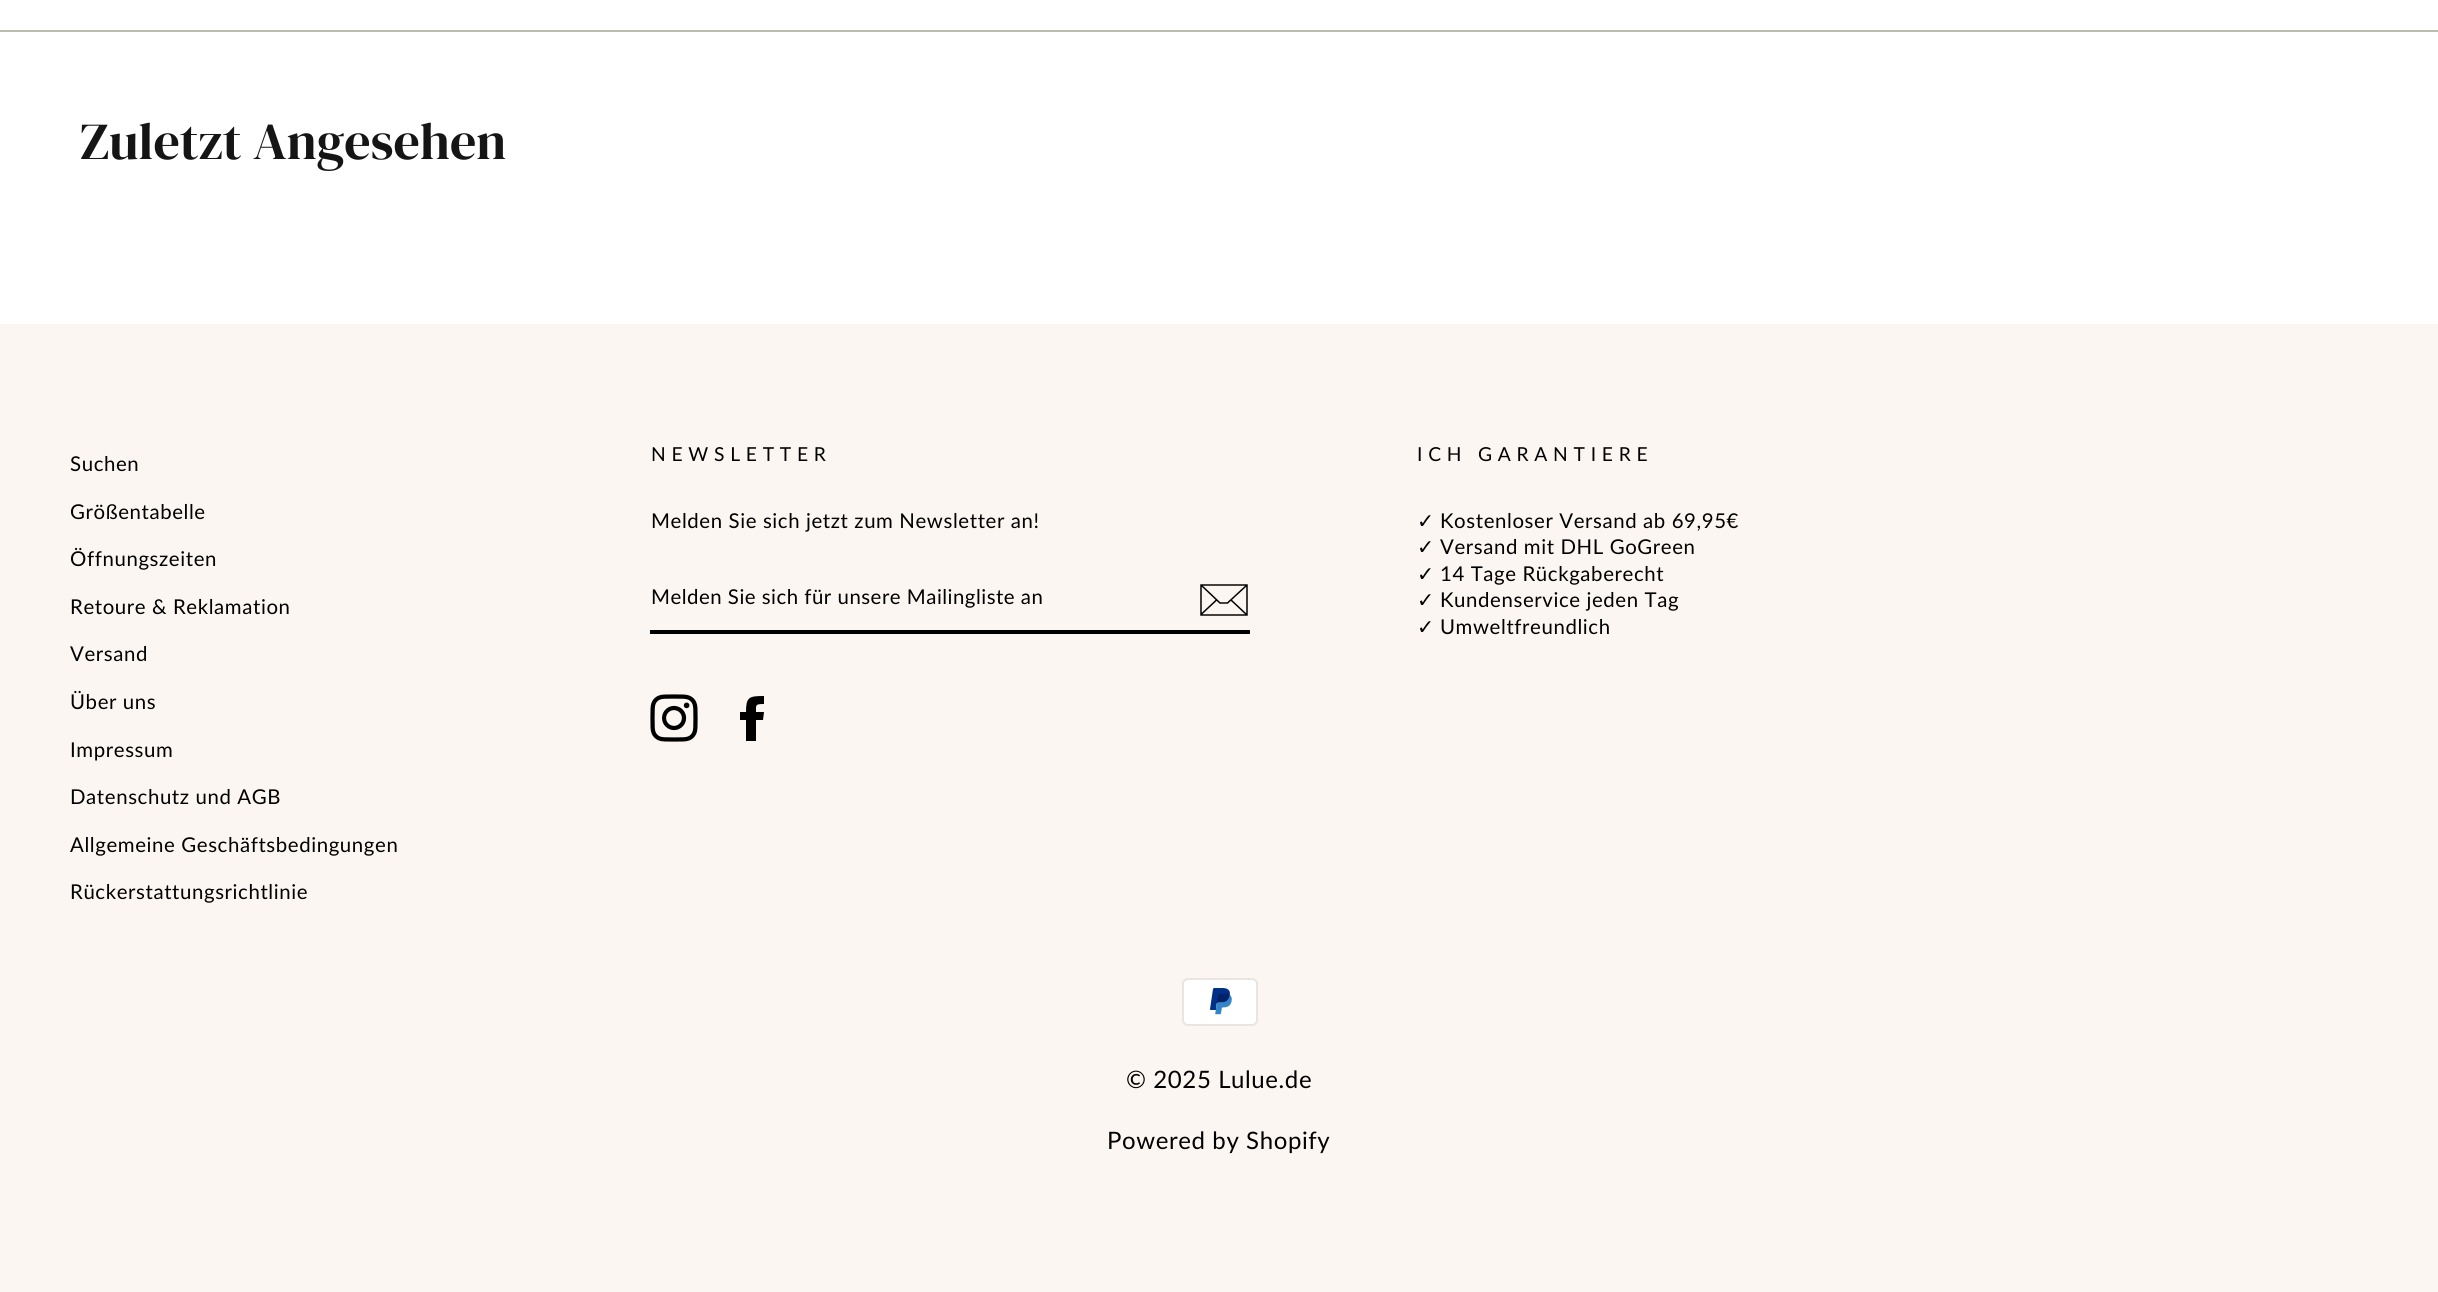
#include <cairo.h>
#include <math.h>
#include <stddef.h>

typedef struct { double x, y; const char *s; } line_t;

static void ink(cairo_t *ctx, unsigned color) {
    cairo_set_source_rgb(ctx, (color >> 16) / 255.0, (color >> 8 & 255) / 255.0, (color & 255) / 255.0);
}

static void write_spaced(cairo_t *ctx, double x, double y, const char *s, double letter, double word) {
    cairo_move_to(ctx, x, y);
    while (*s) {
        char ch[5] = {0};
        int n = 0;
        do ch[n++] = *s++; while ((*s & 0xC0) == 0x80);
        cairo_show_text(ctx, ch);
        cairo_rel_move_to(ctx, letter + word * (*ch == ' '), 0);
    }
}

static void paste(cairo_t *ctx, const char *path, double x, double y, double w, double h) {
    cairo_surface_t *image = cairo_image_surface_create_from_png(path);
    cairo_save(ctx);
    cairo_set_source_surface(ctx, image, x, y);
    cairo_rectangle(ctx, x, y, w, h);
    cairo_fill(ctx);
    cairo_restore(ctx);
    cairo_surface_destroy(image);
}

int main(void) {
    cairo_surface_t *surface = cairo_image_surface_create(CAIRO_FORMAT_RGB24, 2438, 1292);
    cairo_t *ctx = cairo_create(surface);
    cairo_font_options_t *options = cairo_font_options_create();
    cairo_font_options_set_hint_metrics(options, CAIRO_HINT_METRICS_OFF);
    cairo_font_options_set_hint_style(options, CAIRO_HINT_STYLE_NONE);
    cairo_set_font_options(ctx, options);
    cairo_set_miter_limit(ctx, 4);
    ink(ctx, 0xFFFFFF);
    cairo_paint(ctx);
    ink(ctx, 0xB9BCAF);
    cairo_rectangle(ctx, 0, 30, 2438, 2);
    cairo_fill(ctx);
    cairo_select_font_face(ctx, "DM Serif Display", CAIRO_FONT_SLANT_NORMAL, CAIRO_FONT_WEIGHT_NORMAL);
    cairo_set_font_size(ctx, 52);
    ink(ctx, 0x151515);
    cairo_move_to(ctx, 80, 159);
    cairo_show_text(ctx, "Zuletzt Angesehen");
    ink(ctx, 0xFCF6F2);
    cairo_rectangle(ctx, 0, 324, 2438, 968);
    cairo_fill(ctx);
    cairo_select_font_face(ctx, "Lato", CAIRO_FONT_SLANT_NORMAL, CAIRO_FONT_WEIGHT_NORMAL);
    cairo_set_font_size(ctx, 20.4);
    ink(ctx, 0x000000);
    {
        static const line_t items[] = {
            {70, 471, "Suchen"},
            {70, 519, "Größentabelle"},
            {70, 566, "Öffnungszeiten"},
            {70, 614, "Retoure & Reklamation"},
            {70, 661, "Versand"},
            {70, 709, "Über uns"},
            {70, 757, "Impressum"},
            {70, 804, "Datenschutz und AGB"},
            {70, 852, "Allgemeine Geschäftsbedingungen"},
            {70, 899, "Rückerstattungsrichtlinie"},
        };
        for (size_t i = 0; i < sizeof items / sizeof *items; i++) {
            write_spaced(ctx, items[i].x, items[i].y, items[i].s, 0.6, 0);
        }
    }
    cairo_set_font_size(ctx, 19.25);
    write_spaced(ctx, 651, 461, "NEWSLETTER", 5.75, 0);
    cairo_set_font_size(ctx, 20.4);
    write_spaced(ctx, 651, 528, "Melden Sie sich jetzt zum Newsletter an!", 0.6, 0);
    cairo_rectangle(ctx, 650, 630, 600, 4);
    cairo_fill(ctx);
    write_spaced(ctx, 651, 604, "Melden Sie sich für unsere Mailingliste an", 0.5, 0);
    cairo_new_path(ctx);
    cairo_move_to(ctx, 1247, 615);
    cairo_line_to(ctx, 1201, 615);
    cairo_line_to(ctx, 1201, 585);
    cairo_line_to(ctx, 1247, 585);
    cairo_close_path(ctx);
    cairo_move_to(ctx, 1201, 585);
    cairo_line_to(ctx, 1220, 603);
    cairo_line_to(ctx, 1227.5, 603);
    cairo_line_to(ctx, 1247, 585);
    cairo_move_to(ctx, 1216.5, 600);
    cairo_line_to(ctx, 1201, 614.5);
    cairo_move_to(ctx, 1247, 615);
    cairo_line_to(ctx, 1231, 600);
    cairo_set_line_width(ctx, 1.5);
    cairo_stroke(ctx);
    paste(ctx, "media/1.png", 650, 694, 48, 48);
    cairo_new_path(ctx);
    cairo_move_to(ctx, 756, 741);
    cairo_line_to(ctx, 756, 720);
    cairo_line_to(ctx, 763, 720);
    cairo_line_to(ctx, 764, 712);
    cairo_line_to(ctx, 756, 712);
    cairo_curve_to(ctx, 756, 705, 755, 704, 764, 704);
    cairo_line_to(ctx, 764, 696);
    cairo_curve_to(ctx, 749, 696, 746, 697, 746, 712);
    cairo_line_to(ctx, 740, 712);
    cairo_line_to(ctx, 740, 720);
    cairo_line_to(ctx, 746, 720);
    cairo_line_to(ctx, 746, 741);
    cairo_close_path(ctx);
    cairo_fill(ctx);
    cairo_set_font_size(ctx, 19.25);
    write_spaced(ctx, 1417, 461, "ICH GARANTIERE", 5.75, 0);
    cairo_select_font_face(ctx, "DejaVu Sans", CAIRO_FONT_SLANT_NORMAL, CAIRO_FONT_WEIGHT_NORMAL);
    cairo_set_font_size(ctx, 20.4);
    write_spaced(ctx, 1417, 528, "✓", 0.6, 0);
    cairo_select_font_face(ctx, "Lato", CAIRO_FONT_SLANT_NORMAL, CAIRO_FONT_WEIGHT_NORMAL);
    write_spaced(ctx, 1440, 528, "Kostenloser Versand ab 69,95€", 0.6, 0);
    cairo_select_font_face(ctx, "DejaVu Sans", CAIRO_FONT_SLANT_NORMAL, CAIRO_FONT_WEIGHT_NORMAL);
    write_spaced(ctx, 1417, 554, "✓", 0.6, 0);
    cairo_select_font_face(ctx, "Lato", CAIRO_FONT_SLANT_NORMAL, CAIRO_FONT_WEIGHT_NORMAL);
    write_spaced(ctx, 1440, 554, "Versand mit DHL GoGreen", 0.6, 0);
    cairo_select_font_face(ctx, "DejaVu Sans", CAIRO_FONT_SLANT_NORMAL, CAIRO_FONT_WEIGHT_NORMAL);
    write_spaced(ctx, 1417, 581, "✓", 0.6, 0);
    cairo_select_font_face(ctx, "Lato", CAIRO_FONT_SLANT_NORMAL, CAIRO_FONT_WEIGHT_NORMAL);
    write_spaced(ctx, 1440, 581, "14 Tage Rückgaberecht", 0.6, 0);
    cairo_select_font_face(ctx, "DejaVu Sans", CAIRO_FONT_SLANT_NORMAL, CAIRO_FONT_WEIGHT_NORMAL);
    write_spaced(ctx, 1417, 607, "✓", 0.6, 0);
    cairo_select_font_face(ctx, "Lato", CAIRO_FONT_SLANT_NORMAL, CAIRO_FONT_WEIGHT_NORMAL);
    write_spaced(ctx, 1440, 607, "Kundenservice jeden Tag", 0.6, 0);
    cairo_select_font_face(ctx, "DejaVu Sans", CAIRO_FONT_SLANT_NORMAL, CAIRO_FONT_WEIGHT_NORMAL);
    write_spaced(ctx, 1417, 634, "✓", 0.6, 0);
    cairo_select_font_face(ctx, "Lato", CAIRO_FONT_SLANT_NORMAL, CAIRO_FONT_WEIGHT_NORMAL);
    write_spaced(ctx, 1440, 634, "Umweltfreundlich", 0.6, 0);
    paste(ctx, "media/2.png", 1182, 978, 76, 48);
    cairo_set_font_size(ctx, 24);
    write_spaced(ctx, 1126, 1088, "© 2025 Lulue.de", 0.6, 0);
    write_spaced(ctx, 1107, 1149, "Powered by Shopify", 0.6, 0);
    cairo_surface_write_to_png(surface, "image.png");
    cairo_font_options_destroy(options);
    cairo_destroy(ctx);
    cairo_surface_destroy(surface);
    return 0;
}
